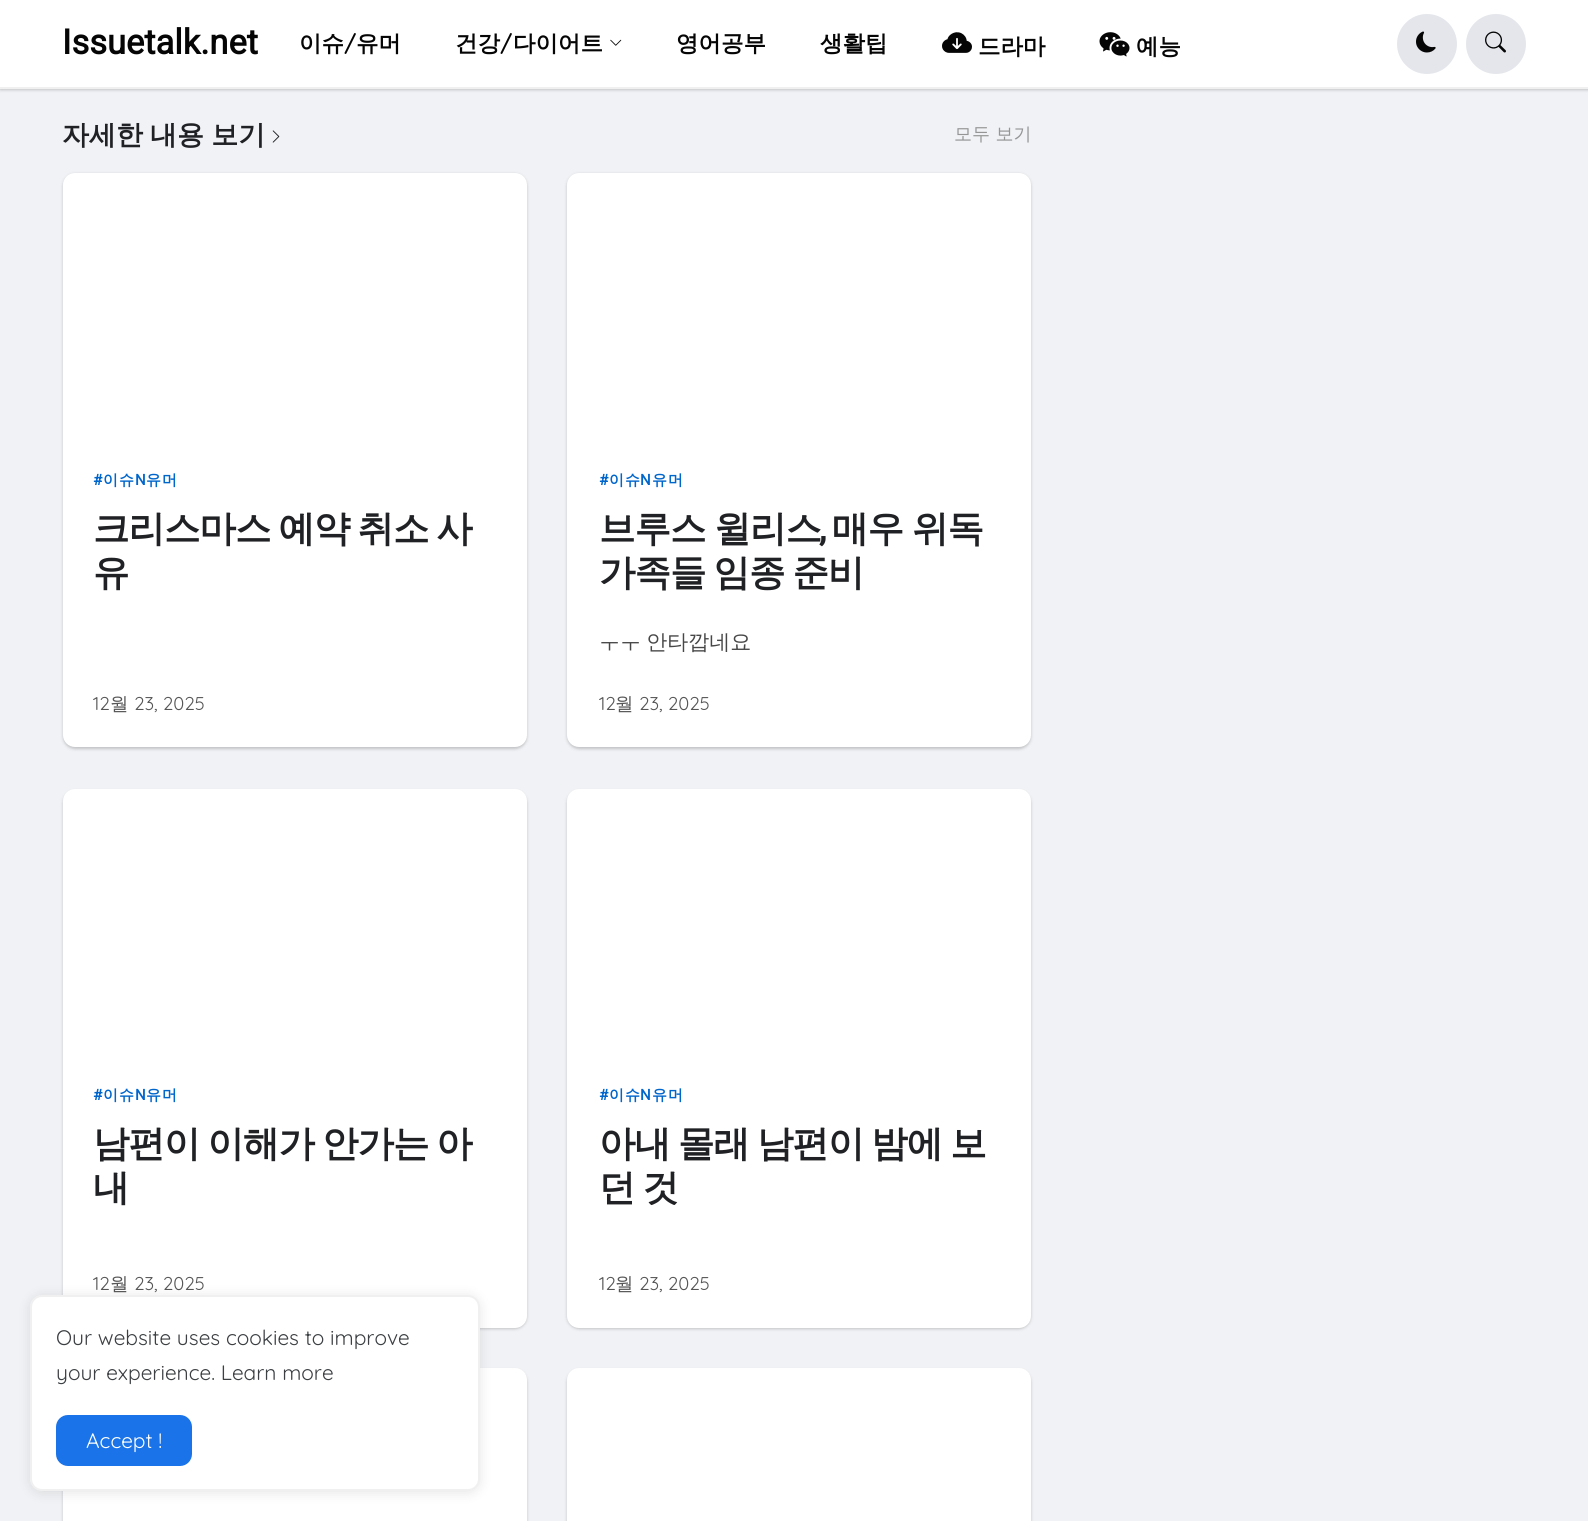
#include <cairo.h>
#include <math.h>
#include <stddef.h>


static void ink(cairo_t *ctx, unsigned color) {
    cairo_set_source_rgb(ctx, (color >> 16) / 255.0, (color >> 8 & 255) / 255.0, (color & 255) / 255.0);
}

static void write_spaced(cairo_t *ctx, double x, double y, const char *s, double letter, double word) {
    cairo_move_to(ctx, x, y);
    while (*s) {
        char ch[5] = {0};
        int n = 0;
        do ch[n++] = *s++; while ((*s & 0xC0) == 0x80);
        cairo_show_text(ctx, ch);
        cairo_rel_move_to(ctx, letter + word * (*ch == ' '), 0);
    }
}

static void round_path(cairo_t *ctx, double x, double y, double w, double h, double r) {
    cairo_new_sub_path(ctx);
    cairo_arc(ctx, x + w - r, y + h - r, r, 0, M_PI / 2);
    cairo_arc(ctx, x + r, y + h - r, r, M_PI / 2, M_PI);
    cairo_arc(ctx, x + r, y + r, r, M_PI, 1.5 * M_PI);
    cairo_arc(ctx, x + w - r, y + r, r, 1.5 * M_PI, 2 * M_PI);
    cairo_close_path(ctx);
}

static void blur_box(cairo_t *ctx, double x, double y, double w, double h, double r, double blur, double alpha) {
    cairo_push_group_with_content(ctx, CAIRO_CONTENT_ALPHA);
    cairo_set_operator(ctx, CAIRO_OPERATOR_SOURCE);
    for (int i = 15; i >= -15 && fmin(w, h) + blur * i / 3 > 0; i -= 2) {
        double e = blur * i / 6;
        cairo_set_source_rgba(ctx, 0, 0, 0, alpha * erfc((i - 1) / 8.5) / 2);
        round_path(ctx, x - e, y - e, w + 2 * e, h + 2 * e, fmax(0, fmin(r + e + blur * .6, fmin(w, h) / 2 + e)));
        cairo_fill(ctx);
    }
    cairo_pattern_t *soft = cairo_pop_group(ctx);
    cairo_mask(ctx, soft);
    cairo_pattern_destroy(soft);
}

static void paste(cairo_t *ctx, const char *path, double x, double y, double w, double h) {
    cairo_surface_t *image = cairo_image_surface_create_from_png(path);
    cairo_save(ctx);
    cairo_set_source_surface(ctx, image, x, y);
    cairo_rectangle(ctx, x, y, w, h);
    cairo_fill(ctx);
    cairo_restore(ctx);
    cairo_surface_destroy(image);
}

int main(void) {
    cairo_surface_t *surface = cairo_image_surface_create(CAIRO_FORMAT_RGB24, 1588, 1521);
    cairo_t *ctx = cairo_create(surface);
    cairo_font_options_t *options = cairo_font_options_create();
    cairo_font_options_set_hint_metrics(options, CAIRO_HINT_METRICS_OFF);
    cairo_font_options_set_hint_style(options, CAIRO_HINT_STYLE_NONE);
    cairo_set_font_options(ctx, options);
    cairo_set_miter_limit(ctx, 4);
    ink(ctx, 0xF0F2F5);
    cairo_paint(ctx);
    ink(ctx, 0x000000);
    blur_box(ctx, 0, 2, 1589, 88, 0, 1.5, 0.2);
    ink(ctx, 0xFFFFFF);
    cairo_rectangle(ctx, 0, 0, 1588, 87);
    cairo_fill(ctx);
    ink(ctx, 0xF0F0F0);
    cairo_rectangle(ctx, 0, 87, 1588, 2);
    cairo_fill(ctx);
    cairo_select_font_face(ctx, "Roboto", CAIRO_FONT_SLANT_NORMAL, CAIRO_FONT_WEIGHT_BOLD);
    cairo_set_font_size(ctx, 34.5);
    ink(ctx, 0x050505);
    cairo_move_to(ctx, 62, 54);
    cairo_show_text(ctx, "Issuetalk.net");
    cairo_select_font_face(ctx, "WenQuanYi Zen Hei", CAIRO_FONT_SLANT_NORMAL, CAIRO_FONT_WEIGHT_BOLD);
    cairo_set_font_size(ctx, 22.5);
    cairo_move_to(ctx, 299, 51);
    cairo_show_text(ctx, "이슈");
    cairo_select_font_face(ctx, "Quicksand SemiBold", CAIRO_FONT_SLANT_NORMAL, CAIRO_FONT_WEIGHT_NORMAL);
    cairo_move_to(ctx, 344, 51);
    cairo_show_text(ctx, "/");
    cairo_select_font_face(ctx, "WenQuanYi Zen Hei", CAIRO_FONT_SLANT_NORMAL, CAIRO_FONT_WEIGHT_BOLD);
    cairo_move_to(ctx, 356, 51);
    cairo_show_text(ctx, "유머");
    cairo_move_to(ctx, 455, 51);
    cairo_show_text(ctx, "건강");
    cairo_select_font_face(ctx, "Quicksand SemiBold", CAIRO_FONT_SLANT_NORMAL, CAIRO_FONT_WEIGHT_NORMAL);
    cairo_move_to(ctx, 500, 51);
    cairo_show_text(ctx, "/");
    cairo_select_font_face(ctx, "WenQuanYi Zen Hei", CAIRO_FONT_SLANT_NORMAL, CAIRO_FONT_WEIGHT_BOLD);
    cairo_move_to(ctx, 513, 51);
    cairo_show_text(ctx, "다이어트");
    paste(ctx, "media/1.png", 610, 39, 12, 7);
    cairo_move_to(ctx, 676, 51);
    cairo_show_text(ctx, "영어공부");
    cairo_move_to(ctx, 820, 51);
    cairo_show_text(ctx, "생활팁");
    paste(ctx, "media/2.png", 942, 32, 30, 21);
    cairo_move_to(ctx, 978, 54);
    cairo_show_text(ctx, "드라마");
    paste(ctx, "media/3.png", 1099, 32, 31, 25);
    cairo_move_to(ctx, 1136, 54);
    cairo_show_text(ctx, "예능");
    ink(ctx, 0xE4E6EB);
    cairo_new_path(ctx);
    cairo_arc(ctx, 1427, 44, 30, 0, 2 * M_PI);
    cairo_fill(ctx);
    paste(ctx, "media/4.png", 1416, 31, 20, 22);
    cairo_arc(ctx, 1496, 44, 30, 0, 2 * M_PI);
    cairo_fill(ctx);
    paste(ctx, "media/5.png", 1485, 31, 21, 22);
    cairo_set_font_size(ctx, 27);
    ink(ctx, 0x202124);
    write_spaced(ctx, 62, 144, "자세한 내용 보기", 0, -1);
    paste(ctx, "media/6.png", 272, 130, 8, 13);
    cairo_select_font_face(ctx, "WenQuanYi Zen Hei Medium", CAIRO_FONT_SLANT_NORMAL, CAIRO_FONT_WEIGHT_NORMAL);
    cairo_set_font_size(ctx, 18);
    ink(ctx, 0x959595);
    cairo_move_to(ctx, 954, 140);
    cairo_show_text(ctx, "모두 보기");
    ink(ctx, 0x000000);
    blur_box(ctx, 63, 174, 464, 575, 12, 1.5, 0.2);
    ink(ctx, 0xFFFFFF);
    round_path(ctx, 63, 173, 464, 574, 12);
    cairo_fill(ctx);
    cairo_select_font_face(ctx, "Roboto", CAIRO_FONT_SLANT_NORMAL, CAIRO_FONT_WEIGHT_BOLD);
    cairo_set_font_size(ctx, 15);
    ink(ctx, 0x0066CC);
    write_spaced(ctx, 93, 485, "#", 1, 0);
    cairo_select_font_face(ctx, "WenQuanYi Zen Hei", CAIRO_FONT_SLANT_NORMAL, CAIRO_FONT_WEIGHT_BOLD);
    write_spaced(ctx, 103, 485, "이슈", 1, 0);
    cairo_select_font_face(ctx, "Roboto", CAIRO_FONT_SLANT_NORMAL, CAIRO_FONT_WEIGHT_BOLD);
    write_spaced(ctx, 135, 485, "N", 1, 0);
    cairo_select_font_face(ctx, "WenQuanYi Zen Hei", CAIRO_FONT_SLANT_NORMAL, CAIRO_FONT_WEIGHT_BOLD);
    write_spaced(ctx, 146, 485, "유머", 1, 0);
    cairo_set_font_size(ctx, 36.5);
    ink(ctx, 0x202124);
    write_spaced(ctx, 93, 541, "크리스마스 예약 취소 사", -1, -2);
    write_spaced(ctx, 93, 585, "유", -1, 0);
    cairo_select_font_face(ctx, "Quicksand Light", CAIRO_FONT_SLANT_NORMAL, CAIRO_FONT_WEIGHT_NORMAL);
    cairo_set_font_size(ctx, 18.5);
    ink(ctx, 0x565656);
    cairo_move_to(ctx, 93, 710);
    cairo_show_text(ctx, "12");
    cairo_select_font_face(ctx, "WenQuanYi Zen Hei Medium", CAIRO_FONT_SLANT_NORMAL, CAIRO_FONT_WEIGHT_NORMAL);
    cairo_move_to(ctx, 110, 710);
    cairo_show_text(ctx, "월");
    cairo_select_font_face(ctx, "Quicksand Light", CAIRO_FONT_SLANT_NORMAL, CAIRO_FONT_WEIGHT_NORMAL);
    cairo_move_to(ctx, 134, 710);
    cairo_show_text(ctx, "23, 2025");
    ink(ctx, 0x000000);
    blur_box(ctx, 567, 174, 464, 575, 12, 1.5, 0.2);
    ink(ctx, 0xFFFFFF);
    round_path(ctx, 567, 173, 464, 574, 12);
    cairo_fill(ctx);
    cairo_select_font_face(ctx, "Roboto", CAIRO_FONT_SLANT_NORMAL, CAIRO_FONT_WEIGHT_BOLD);
    cairo_set_font_size(ctx, 15);
    ink(ctx, 0x0066CC);
    write_spaced(ctx, 599, 485, "#", 1, 0);
    cairo_select_font_face(ctx, "WenQuanYi Zen Hei", CAIRO_FONT_SLANT_NORMAL, CAIRO_FONT_WEIGHT_BOLD);
    write_spaced(ctx, 609, 485, "이슈", 1, 0);
    cairo_select_font_face(ctx, "Roboto", CAIRO_FONT_SLANT_NORMAL, CAIRO_FONT_WEIGHT_BOLD);
    write_spaced(ctx, 640, 485, "N", 1, 0);
    cairo_select_font_face(ctx, "WenQuanYi Zen Hei", CAIRO_FONT_SLANT_NORMAL, CAIRO_FONT_WEIGHT_BOLD);
    write_spaced(ctx, 652, 485, "유머", 1, 0);
    cairo_set_font_size(ctx, 36.5);
    ink(ctx, 0x202124);
    write_spaced(ctx, 599, 541, "브루스 윌리스", -1, -1);
    cairo_select_font_face(ctx, "Roboto", CAIRO_FONT_SLANT_NORMAL, CAIRO_FONT_WEIGHT_BOLD);
    write_spaced(ctx, 819, 541, ",", -1, 0);
    cairo_select_font_face(ctx, "WenQuanYi Zen Hei", CAIRO_FONT_SLANT_NORMAL, CAIRO_FONT_WEIGHT_BOLD);
    write_spaced(ctx, 832, 541, "매우 위독", -1, -1);
    write_spaced(ctx, 599, 585, "가족들 임종 준비", -1, -2);
    cairo_select_font_face(ctx, "WenQuanYi Zen Hei Medium", CAIRO_FONT_SLANT_NORMAL, CAIRO_FONT_WEIGHT_NORMAL);
    cairo_set_font_size(ctx, 21);
    ink(ctx, 0x474747);
    write_spaced(ctx, 599, 649, "ㅜㅜ 안타깝네요", 0, -1);
    cairo_select_font_face(ctx, "Quicksand Light", CAIRO_FONT_SLANT_NORMAL, CAIRO_FONT_WEIGHT_NORMAL);
    cairo_set_font_size(ctx, 18.5);
    ink(ctx, 0x565656);
    cairo_move_to(ctx, 599, 710);
    cairo_show_text(ctx, "12");
    cairo_select_font_face(ctx, "WenQuanYi Zen Hei Medium", CAIRO_FONT_SLANT_NORMAL, CAIRO_FONT_WEIGHT_NORMAL);
    cairo_move_to(ctx, 615, 710);
    cairo_show_text(ctx, "월");
    cairo_select_font_face(ctx, "Quicksand Light", CAIRO_FONT_SLANT_NORMAL, CAIRO_FONT_WEIGHT_NORMAL);
    cairo_move_to(ctx, 639, 710);
    cairo_show_text(ctx, "23, 2025");
    ink(ctx, 0x000000);
    blur_box(ctx, 63, 791, 464, 538, 12, 1.5, 0.2);
    ink(ctx, 0xFFFFFF);
    round_path(ctx, 63, 789, 464, 539, 12);
    cairo_fill(ctx);
    cairo_select_font_face(ctx, "Roboto", CAIRO_FONT_SLANT_NORMAL, CAIRO_FONT_WEIGHT_BOLD);
    cairo_set_font_size(ctx, 15);
    ink(ctx, 0x0066CC);
    write_spaced(ctx, 93, 1100, "#", 1, 0);
    cairo_select_font_face(ctx, "WenQuanYi Zen Hei", CAIRO_FONT_SLANT_NORMAL, CAIRO_FONT_WEIGHT_BOLD);
    write_spaced(ctx, 103, 1100, "이슈", 1, 0);
    cairo_select_font_face(ctx, "Roboto", CAIRO_FONT_SLANT_NORMAL, CAIRO_FONT_WEIGHT_BOLD);
    write_spaced(ctx, 135, 1100, "N", 1, 0);
    cairo_select_font_face(ctx, "WenQuanYi Zen Hei", CAIRO_FONT_SLANT_NORMAL, CAIRO_FONT_WEIGHT_BOLD);
    write_spaced(ctx, 146, 1100, "유머", 1, 0);
    cairo_set_font_size(ctx, 36.5);
    ink(ctx, 0x202124);
    write_spaced(ctx, 93, 1156, "남편이 이해가 안가는 아", -1, -2);
    write_spaced(ctx, 93, 1200, "내", -1, 0);
    cairo_select_font_face(ctx, "Quicksand Light", CAIRO_FONT_SLANT_NORMAL, CAIRO_FONT_WEIGHT_NORMAL);
    cairo_set_font_size(ctx, 18.5);
    ink(ctx, 0x565656);
    cairo_move_to(ctx, 93, 1290);
    cairo_show_text(ctx, "12");
    cairo_select_font_face(ctx, "WenQuanYi Zen Hei Medium", CAIRO_FONT_SLANT_NORMAL, CAIRO_FONT_WEIGHT_NORMAL);
    cairo_move_to(ctx, 110, 1290);
    cairo_show_text(ctx, "월");
    cairo_select_font_face(ctx, "Quicksand Light", CAIRO_FONT_SLANT_NORMAL, CAIRO_FONT_WEIGHT_NORMAL);
    cairo_move_to(ctx, 134, 1290);
    cairo_show_text(ctx, "23, 2025");
    ink(ctx, 0x000000);
    blur_box(ctx, 567, 791, 464, 538, 12, 1.5, 0.2);
    ink(ctx, 0xFFFFFF);
    round_path(ctx, 567, 789, 464, 539, 12);
    cairo_fill(ctx);
    cairo_select_font_face(ctx, "Roboto", CAIRO_FONT_SLANT_NORMAL, CAIRO_FONT_WEIGHT_BOLD);
    cairo_set_font_size(ctx, 15);
    ink(ctx, 0x0066CC);
    write_spaced(ctx, 599, 1100, "#", 1, 0);
    cairo_select_font_face(ctx, "WenQuanYi Zen Hei", CAIRO_FONT_SLANT_NORMAL, CAIRO_FONT_WEIGHT_BOLD);
    write_spaced(ctx, 609, 1100, "이슈", 1, 0);
    cairo_select_font_face(ctx, "Roboto", CAIRO_FONT_SLANT_NORMAL, CAIRO_FONT_WEIGHT_BOLD);
    write_spaced(ctx, 640, 1100, "N", 1, 0);
    cairo_select_font_face(ctx, "WenQuanYi Zen Hei", CAIRO_FONT_SLANT_NORMAL, CAIRO_FONT_WEIGHT_BOLD);
    write_spaced(ctx, 652, 1100, "유머", 1, 0);
    cairo_set_font_size(ctx, 36.5);
    ink(ctx, 0x202124);
    write_spaced(ctx, 599, 1156, "아내 몰래 남편이 밤에 보", -1, -2);
    write_spaced(ctx, 599, 1200, "던 것", -1, -2);
    cairo_select_font_face(ctx, "Quicksand Light", CAIRO_FONT_SLANT_NORMAL, CAIRO_FONT_WEIGHT_NORMAL);
    cairo_set_font_size(ctx, 18.5);
    ink(ctx, 0x565656);
    cairo_move_to(ctx, 599, 1290);
    cairo_show_text(ctx, "12");
    cairo_select_font_face(ctx, "WenQuanYi Zen Hei Medium", CAIRO_FONT_SLANT_NORMAL, CAIRO_FONT_WEIGHT_NORMAL);
    cairo_move_to(ctx, 615, 1290);
    cairo_show_text(ctx, "월");
    cairo_select_font_face(ctx, "Quicksand Light", CAIRO_FONT_SLANT_NORMAL, CAIRO_FONT_WEIGHT_NORMAL);
    cairo_move_to(ctx, 639, 1290);
    cairo_show_text(ctx, "23, 2025");
    ink(ctx, 0x000000);
    blur_box(ctx, 63, 1370, 464, 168, 12, 1.5, 0.2);
    ink(ctx, 0xFFFFFF);
    round_path(ctx, 63, 1368, 464, 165, 12);
    cairo_fill(ctx);
    ink(ctx, 0x000000);
    blur_box(ctx, 567, 1370, 464, 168, 12, 1.5, 0.2);
    ink(ctx, 0xFFFFFF);
    round_path(ctx, 567, 1368, 464, 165, 12);
    cairo_fill(ctx);
    ink(ctx, 0x000000);
    blur_box(ctx, 30, 1296, 450, 197, 12, 6, 0.1);
    ink(ctx, 0xFFFFFF);
    round_path(ctx, 30, 1295, 450, 196, 12);
    cairo_fill(ctx);
    round_path(ctx, 31, 1296, 448, 194, 11);
    cairo_set_source_rgba(ctx, 0.608, 0.608, 0.608, 0.15);
    cairo_stroke(ctx);
    cairo_set_font_size(ctx, 21);
    ink(ctx, 0x3C4043);
    cairo_move_to(ctx, 56, 1345);
    cairo_show_text(ctx, "Our website uses cookies to improve");
    cairo_move_to(ctx, 56, 1380);
    cairo_show_text(ctx, "your experience. Learn more");
    ink(ctx, 0x1A73E8);
    round_path(ctx, 56, 1415, 136, 51, 12);
    cairo_fill(ctx);
    ink(ctx, 0xFFFFFF);
    cairo_move_to(ctx, 86, 1448);
    cairo_show_text(ctx, "Accept !");
    cairo_surface_write_to_png(surface, "image.png");
    cairo_font_options_destroy(options);
    cairo_destroy(ctx);
    cairo_surface_destroy(surface);
    return 0;
}
